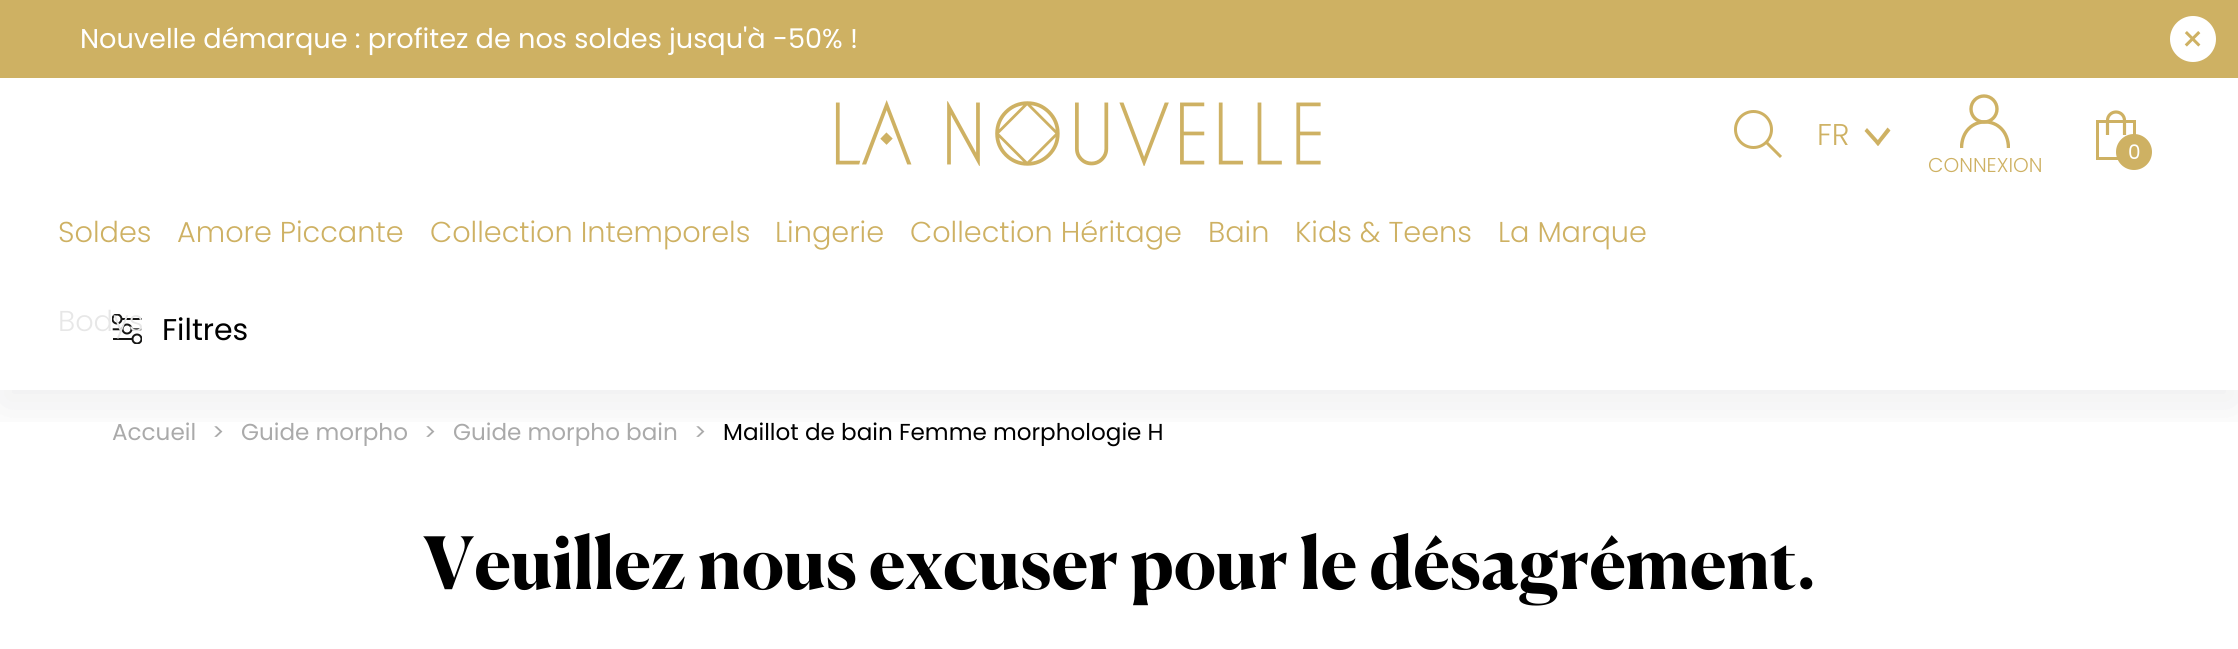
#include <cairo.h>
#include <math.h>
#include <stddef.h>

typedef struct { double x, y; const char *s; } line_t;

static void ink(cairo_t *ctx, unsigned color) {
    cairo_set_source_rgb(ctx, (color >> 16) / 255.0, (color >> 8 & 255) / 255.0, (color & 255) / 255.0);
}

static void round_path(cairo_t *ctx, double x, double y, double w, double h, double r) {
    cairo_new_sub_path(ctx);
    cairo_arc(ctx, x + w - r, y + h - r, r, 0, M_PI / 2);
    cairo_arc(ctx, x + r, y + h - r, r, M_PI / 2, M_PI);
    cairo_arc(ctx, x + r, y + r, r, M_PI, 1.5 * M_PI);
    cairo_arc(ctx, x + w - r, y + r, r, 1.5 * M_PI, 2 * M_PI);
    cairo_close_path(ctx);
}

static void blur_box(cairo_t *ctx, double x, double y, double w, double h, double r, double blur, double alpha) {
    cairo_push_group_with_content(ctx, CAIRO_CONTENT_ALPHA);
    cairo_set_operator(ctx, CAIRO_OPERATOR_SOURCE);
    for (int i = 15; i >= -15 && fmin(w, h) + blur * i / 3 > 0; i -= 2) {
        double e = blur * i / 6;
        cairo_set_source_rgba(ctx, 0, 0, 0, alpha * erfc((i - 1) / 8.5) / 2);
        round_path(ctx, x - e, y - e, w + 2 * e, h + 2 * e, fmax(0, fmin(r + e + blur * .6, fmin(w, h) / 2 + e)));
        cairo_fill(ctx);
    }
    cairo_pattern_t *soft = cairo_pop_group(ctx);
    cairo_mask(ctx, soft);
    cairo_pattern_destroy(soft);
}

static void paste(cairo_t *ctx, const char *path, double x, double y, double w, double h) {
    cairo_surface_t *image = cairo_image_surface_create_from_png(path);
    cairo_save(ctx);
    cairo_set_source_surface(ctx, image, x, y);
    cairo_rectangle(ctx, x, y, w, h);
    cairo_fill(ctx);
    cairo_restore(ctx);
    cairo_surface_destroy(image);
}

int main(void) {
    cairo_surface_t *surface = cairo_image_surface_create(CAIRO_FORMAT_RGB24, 2238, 649);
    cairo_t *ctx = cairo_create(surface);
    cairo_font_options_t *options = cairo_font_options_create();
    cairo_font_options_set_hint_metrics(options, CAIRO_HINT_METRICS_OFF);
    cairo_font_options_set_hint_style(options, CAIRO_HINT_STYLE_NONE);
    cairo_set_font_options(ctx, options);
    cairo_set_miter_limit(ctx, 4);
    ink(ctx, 0xFFFFFF);
    cairo_paint(ctx);
    ink(ctx, 0xCEB163);
    cairo_rectangle(ctx, 0, 0, 2238, 78);
    cairo_fill(ctx);
    cairo_select_font_face(ctx, "Poppins", CAIRO_FONT_SLANT_NORMAL, CAIRO_FONT_WEIGHT_NORMAL);
    cairo_set_font_size(ctx, 27.15);
    ink(ctx, 0xFFFFFF);
    cairo_move_to(ctx, 80, 48);
    cairo_show_text(ctx, "Nouvelle démarque : profitez de nos soldes jusqu'à -50% !");
    cairo_new_path(ctx);
    cairo_arc(ctx, 2193, 39, 23, 0, 2 * M_PI);
    cairo_fill(ctx);
    cairo_set_font_size(ctx, 36);
    ink(ctx, 0xCEB163);
    cairo_move_to(ctx, 2181, 52);
    cairo_show_text(ctx, "×");
    cairo_save(ctx);
    cairo_rectangle(ctx, 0, 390, 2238, 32);
    cairo_clip(ctx);
    ink(ctx, 0x202231);
    blur_box(ctx, 0, 288, 2238, 118, 0, 24, 0.08);
    cairo_restore(ctx);
    ink(ctx, 0xFFFFFF);
    cairo_rectangle(ctx, 5, 262, 2228, 10);
    cairo_fill(ctx);
    paste(ctx, "media/1.png", 835, 100, 486, 66);
    cairo_arc(ctx, 1753.5, 129.5, 18, 0, 2 * M_PI);
    ink(ctx, 0xCEB163);
    cairo_set_line_width(ctx, 3);
    cairo_stroke(ctx);
    cairo_new_path(ctx);
    cairo_move_to(ctx, 1766, 142);
    cairo_line_to(ctx, 1781, 157);
    cairo_stroke(ctx);
    cairo_select_font_face(ctx, "Poppins Light", CAIRO_FONT_SLANT_NORMAL, CAIRO_FONT_WEIGHT_NORMAL);
    cairo_set_font_size(ctx, 30);
    cairo_move_to(ctx, 1817, 145);
    cairo_show_text(ctx, "FR");
    cairo_new_path(ctx);
    cairo_move_to(ctx, 1890.5, 130.5);
    cairo_line_to(ctx, 1878, 146);
    cairo_line_to(ctx, 1875.5, 143);
    cairo_line_to(ctx, 1887.5, 127.5);
    cairo_close_path(ctx);
    cairo_fill(ctx);
    cairo_new_path(ctx);
    cairo_move_to(ctx, 1880.5, 143);
    cairo_line_to(ctx, 1878, 146);
    cairo_line_to(ctx, 1864.5, 131);
    cairo_line_to(ctx, 1867, 128);
    cairo_close_path(ctx);
    cairo_fill(ctx);
    cairo_rectangle(ctx, 2097.5, 121.5, 37, 37);
    cairo_stroke(ctx);
    cairo_new_path(ctx);
    cairo_move_to(ctx, 2107.5, 135);
    cairo_line_to(ctx, 2107.5, 120.5);
    cairo_curve_to(ctx, 2107.5, 115.5, 2111.5, 112, 2116, 112);
    cairo_curve_to(ctx, 2120.5, 112, 2124.5, 115.5, 2124.5, 120.5);
    cairo_line_to(ctx, 2124.5, 135);
    cairo_set_line_width(ctx, 3.2);
    cairo_stroke(ctx);
    cairo_arc(ctx, 2134, 152, 18, 0, 2 * M_PI);
    cairo_fill(ctx);
    cairo_select_font_face(ctx, "Poppins", CAIRO_FONT_SLANT_NORMAL, CAIRO_FONT_WEIGHT_NORMAL);
    cairo_set_font_size(ctx, 20);
    ink(ctx, 0xFFFFFF);
    cairo_move_to(ctx, 2128, 159);
    cairo_show_text(ctx, "0");
    cairo_new_path(ctx);
    cairo_arc(ctx, 1984, 109, 13, 0, 2 * M_PI);
    ink(ctx, 0xCEB163);
    cairo_set_line_width(ctx, 3.4);
    cairo_stroke(ctx);
    cairo_save(ctx);
    cairo_rectangle(ctx, 1960, 94, 50, 54);
    cairo_clip(ctx);
    cairo_new_path(ctx);
    cairo_move_to(ctx, 1961.5, 148.5);
    cairo_curve_to(ctx, 1961.5, 113, 2008.5, 113, 2008.5, 148.5);
    cairo_stroke(ctx);
    cairo_restore(ctx);
    cairo_select_font_face(ctx, "Poppins Light", CAIRO_FONT_SLANT_NORMAL, CAIRO_FONT_WEIGHT_NORMAL);
    cairo_move_to(ctx, 1928, 172);
    cairo_show_text(ctx, "CONNEXION");
    cairo_set_font_size(ctx, 28.75);
    {
        static const line_t items[] = {
            {58, 242, "Soldes"},
            {910, 242, "Collection Héritage"},
            {775, 242, "Lingerie"},
        };
        for (size_t i = 0; i < sizeof items / sizeof *items; i++) {
            cairo_move_to(ctx, items[i].x, items[i].y);
            cairo_show_text(ctx, items[i].s);
        }
    }
    paste(ctx, "media/2.png", 112, 314, 30, 30);
    ink(ctx, 0xE7E7E7);
    cairo_move_to(ctx, 58, 331);
    cairo_show_text(ctx, "Bodys");
    ink(ctx, 0xCEB163);
    {
        static const line_t items[] = {
            {177, 242, "Amore Piccante"},
            {430, 242, "Collection Intemporels"},
            {1208, 242, "Bain"},
            {1295, 242, "Kids & Teens"},
            {1498, 242, "La Marque"},
        };
        for (size_t i = 0; i < sizeof items / sizeof *items; i++) {
            cairo_move_to(ctx, items[i].x, items[i].y);
            cairo_show_text(ctx, items[i].s);
        }
    }
    cairo_select_font_face(ctx, "Poppins", CAIRO_FONT_SLANT_NORMAL, CAIRO_FONT_WEIGHT_NORMAL);
    cairo_set_font_size(ctx, 30);
    ink(ctx, 0x000000);
    cairo_move_to(ctx, 162, 340);
    cairo_show_text(ctx, "Filtres");
    cairo_set_font_size(ctx, 23.1);
    ink(ctx, 0xAAAAAA);
    {
        static const line_t items[] = {
            {112, 440, "Accueil"},
            {212, 440, ">"},
            {241, 440, "Guide morpho"},
            {424, 440, ">"},
            {453, 440, "Guide morpho bain"},
            {694, 440, ">"},
        };
        for (size_t i = 0; i < sizeof items / sizeof *items; i++) {
            cairo_move_to(ctx, items[i].x, items[i].y);
            cairo_show_text(ctx, items[i].s);
        }
    }
    ink(ctx, 0x000000);
    cairo_move_to(ctx, 723, 440);
    cairo_show_text(ctx, "Maillot de bain Femme morphologie H");
    cairo_select_font_face(ctx, "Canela", CAIRO_FONT_SLANT_NORMAL, CAIRO_FONT_WEIGHT_BOLD);
    cairo_set_font_size(ctx, 72);
    cairo_move_to(ctx, 423, 589);
    cairo_show_text(ctx, "Veuillez nous excuser pour le désagrément.");
    cairo_surface_write_to_png(surface, "image.png");
    cairo_font_options_destroy(options);
    cairo_destroy(ctx);
    cairo_surface_destroy(surface);
    return 0;
}
